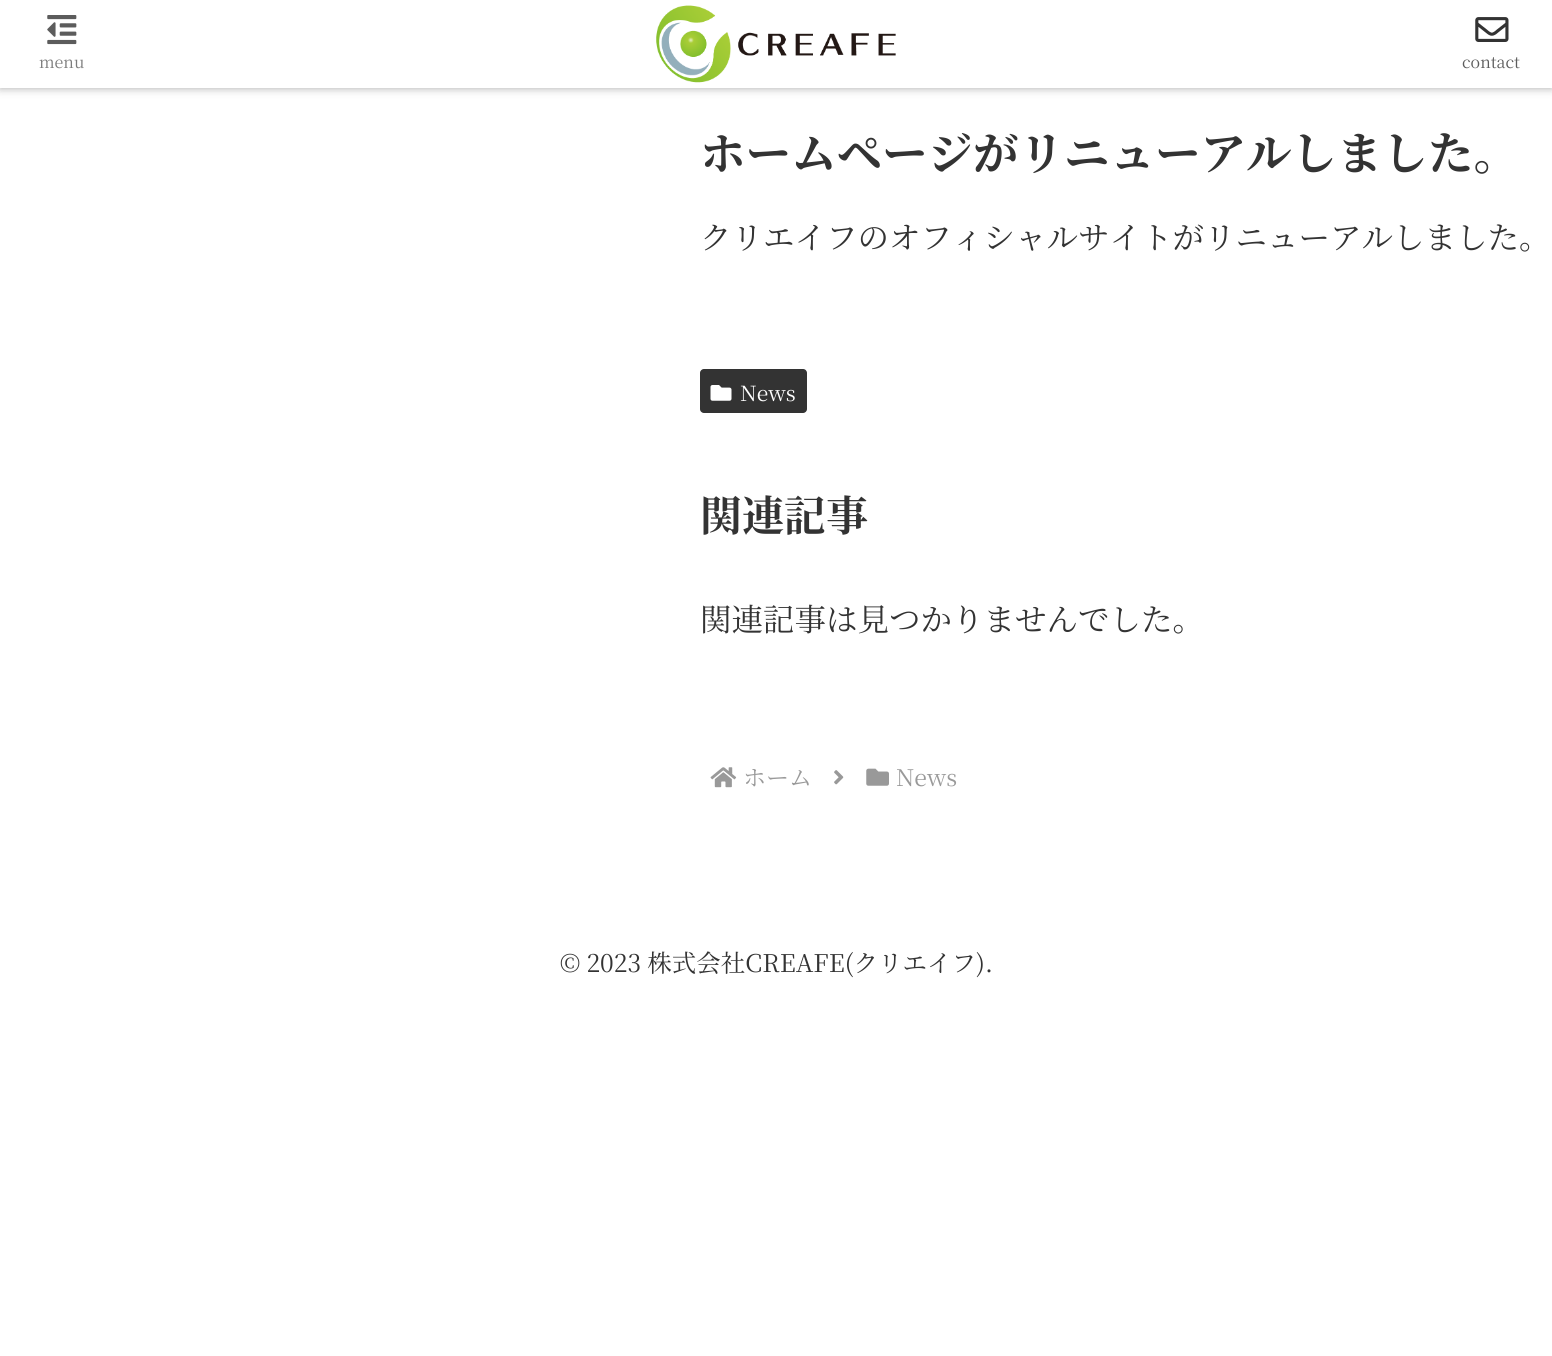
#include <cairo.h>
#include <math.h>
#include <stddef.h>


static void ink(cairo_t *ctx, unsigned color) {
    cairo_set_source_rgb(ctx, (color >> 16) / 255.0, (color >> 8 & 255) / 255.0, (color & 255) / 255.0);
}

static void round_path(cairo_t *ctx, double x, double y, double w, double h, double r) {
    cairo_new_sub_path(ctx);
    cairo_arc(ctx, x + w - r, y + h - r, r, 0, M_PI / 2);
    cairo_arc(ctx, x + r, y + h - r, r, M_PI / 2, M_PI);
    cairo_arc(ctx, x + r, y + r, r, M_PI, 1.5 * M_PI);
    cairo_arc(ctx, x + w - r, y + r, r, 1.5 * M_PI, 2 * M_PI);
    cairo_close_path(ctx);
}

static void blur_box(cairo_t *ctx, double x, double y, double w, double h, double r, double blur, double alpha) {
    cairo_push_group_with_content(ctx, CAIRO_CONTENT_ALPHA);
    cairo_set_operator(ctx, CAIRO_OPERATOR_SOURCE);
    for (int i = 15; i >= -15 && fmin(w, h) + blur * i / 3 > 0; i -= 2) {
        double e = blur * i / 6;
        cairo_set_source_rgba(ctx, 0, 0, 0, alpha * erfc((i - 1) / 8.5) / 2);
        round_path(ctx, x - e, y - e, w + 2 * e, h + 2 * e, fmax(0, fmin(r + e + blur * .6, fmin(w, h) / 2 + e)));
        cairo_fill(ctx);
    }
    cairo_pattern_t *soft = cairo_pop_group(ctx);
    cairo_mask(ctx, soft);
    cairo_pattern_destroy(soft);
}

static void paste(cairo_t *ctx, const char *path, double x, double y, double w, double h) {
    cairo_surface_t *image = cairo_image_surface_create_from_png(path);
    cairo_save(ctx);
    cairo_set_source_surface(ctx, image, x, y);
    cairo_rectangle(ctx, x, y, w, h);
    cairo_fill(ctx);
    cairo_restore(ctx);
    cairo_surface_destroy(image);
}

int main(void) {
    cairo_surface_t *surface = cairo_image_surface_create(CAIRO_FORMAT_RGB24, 1552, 1356);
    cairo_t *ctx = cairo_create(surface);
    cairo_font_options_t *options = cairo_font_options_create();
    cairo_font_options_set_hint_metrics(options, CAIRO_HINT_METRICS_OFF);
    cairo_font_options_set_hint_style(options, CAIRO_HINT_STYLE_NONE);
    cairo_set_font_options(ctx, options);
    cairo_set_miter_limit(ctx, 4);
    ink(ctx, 0xFFFFFF);
    cairo_paint(ctx);
    ink(ctx, 0xA9A9A9);
    blur_box(ctx, 0, 0, 1552, 88, 0, 4.5, 1);
    ink(ctx, 0xFFFFFF);
    cairo_rectangle(ctx, 0, 0, 1552, 88);
    cairo_fill(ctx);
    paste(ctx, "media/1.png", 47, 15, 30, 30);
    cairo_select_font_face(ctx, "Noto Serif JP", CAIRO_FONT_SLANT_NORMAL, CAIRO_FONT_WEIGHT_NORMAL);
    cairo_set_font_size(ctx, 16);
    ink(ctx, 0x7C7C7C);
    cairo_move_to(ctx, 39, 68);
    cairo_show_text(ctx, "menu");
    paste(ctx, "media/2.png", 656, 5, 240, 78);
    paste(ctx, "media/3.png", 1475, 17, 34, 25);
    ink(ctx, 0x5C5C5C);
    cairo_move_to(ctx, 1462, 68);
    cairo_show_text(ctx, "contact");
    cairo_select_font_face(ctx, "Noto Serif JP", CAIRO_FONT_SLANT_NORMAL, CAIRO_FONT_WEIGHT_BOLD);
    cairo_set_font_size(ctx, 45.5);
    ink(ctx, 0x333333);
    cairo_move_to(ctx, 700, 170);
    cairo_show_text(ctx, "ホームページがリニューアルしました。");
    cairo_select_font_face(ctx, "Noto Serif JP", CAIRO_FONT_SLANT_NORMAL, CAIRO_FONT_WEIGHT_NORMAL);
    cairo_set_font_size(ctx, 31.5);
    cairo_move_to(ctx, 700, 249);
    cairo_show_text(ctx, "クリエイフのオフィシャルサイトがリニューアルしました。");
    round_path(ctx, 700, 369, 107, 44, 4);
    cairo_fill(ctx);
    paste(ctx, "media/4.png", 710, 385, 22, 16);
    cairo_set_font_size(ctx, 21);
    ink(ctx, 0xFFFFFF);
    cairo_move_to(ctx, 740, 401);
    cairo_show_text(ctx, "News");
    cairo_select_font_face(ctx, "Noto Serif JP", CAIRO_FONT_SLANT_NORMAL, CAIRO_FONT_WEIGHT_BOLD);
    cairo_set_font_size(ctx, 42);
    ink(ctx, 0x333333);
    cairo_move_to(ctx, 700, 531);
    cairo_show_text(ctx, "関連記事");
    cairo_select_font_face(ctx, "Noto Serif JP", CAIRO_FONT_SLANT_NORMAL, CAIRO_FONT_WEIGHT_NORMAL);
    cairo_set_font_size(ctx, 31.5);
    cairo_move_to(ctx, 700, 631);
    cairo_show_text(ctx, "関連記事は見つかりませんでした。");
    paste(ctx, "media/5.png", 710, 767, 27, 21);
    cairo_set_font_size(ctx, 23);
    ink(ctx, 0x999999);
    cairo_move_to(ctx, 743, 786);
    cairo_show_text(ctx, "ホーム");
    paste(ctx, "media/6.png", 834, 770, 10, 15);
    paste(ctx, "media/7.png", 866, 768, 23, 18);
    cairo_move_to(ctx, 896, 786);
    cairo_show_text(ctx, "News");
    cairo_set_font_size(ctx, 24.5);
    ink(ctx, 0x333333);
    cairo_move_to(ctx, 560, 972);
    cairo_show_text(ctx, "© 2023 株式会社CREAFE(クリエイフ).");
    cairo_surface_write_to_png(surface, "image.png");
    cairo_font_options_destroy(options);
    cairo_destroy(ctx);
    cairo_surface_destroy(surface);
    return 0;
}
